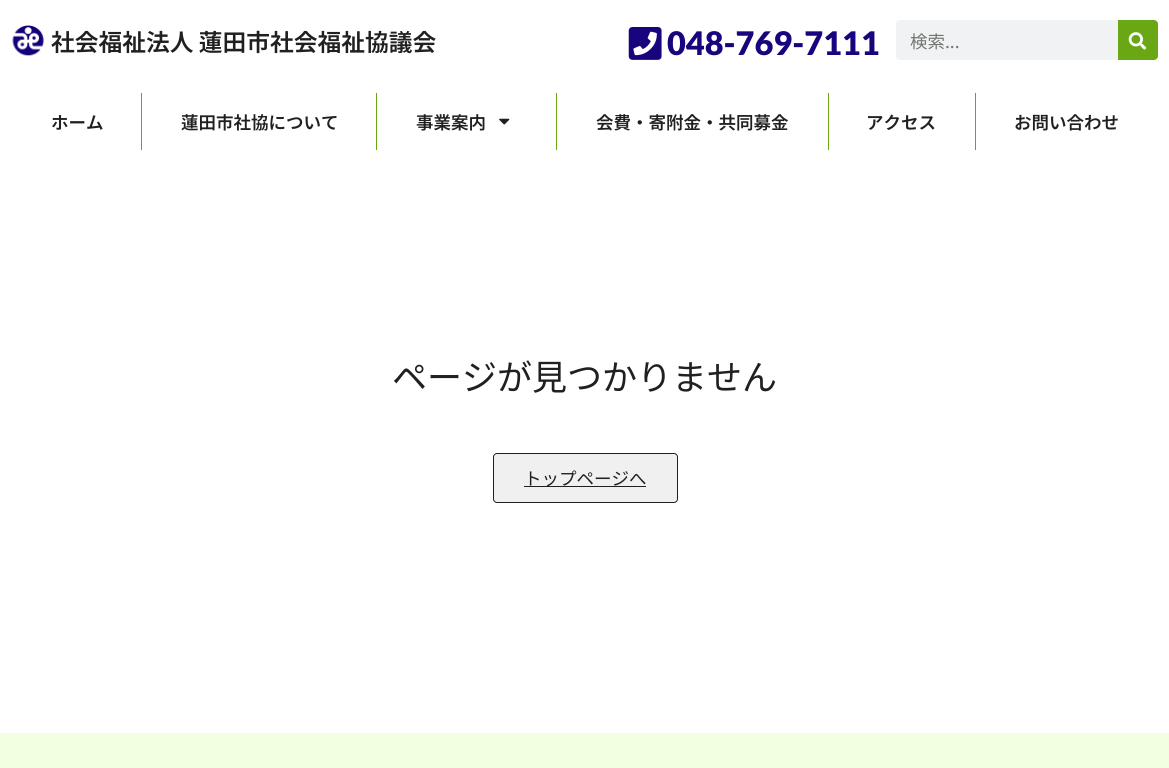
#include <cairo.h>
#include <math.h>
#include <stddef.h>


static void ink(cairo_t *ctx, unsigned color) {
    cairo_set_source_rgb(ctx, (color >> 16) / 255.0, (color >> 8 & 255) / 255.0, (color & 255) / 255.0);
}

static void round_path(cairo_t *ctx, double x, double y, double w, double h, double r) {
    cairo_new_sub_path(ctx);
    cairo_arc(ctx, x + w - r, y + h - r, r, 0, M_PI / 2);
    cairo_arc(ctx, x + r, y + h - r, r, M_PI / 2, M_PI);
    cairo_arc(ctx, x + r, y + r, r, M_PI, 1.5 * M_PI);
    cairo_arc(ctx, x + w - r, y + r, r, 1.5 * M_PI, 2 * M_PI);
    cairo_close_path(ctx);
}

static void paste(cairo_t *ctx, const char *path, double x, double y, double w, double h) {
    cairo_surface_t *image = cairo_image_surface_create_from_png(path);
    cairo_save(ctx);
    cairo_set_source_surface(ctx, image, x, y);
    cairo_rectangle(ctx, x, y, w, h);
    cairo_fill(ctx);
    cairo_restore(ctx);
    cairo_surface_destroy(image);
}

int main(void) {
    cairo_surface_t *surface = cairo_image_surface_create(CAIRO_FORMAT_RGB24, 1169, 768);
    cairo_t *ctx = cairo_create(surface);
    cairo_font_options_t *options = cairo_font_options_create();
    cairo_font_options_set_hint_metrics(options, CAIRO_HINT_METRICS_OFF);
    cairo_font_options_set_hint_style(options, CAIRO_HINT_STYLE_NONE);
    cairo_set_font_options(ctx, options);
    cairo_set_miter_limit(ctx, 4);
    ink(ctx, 0xFFFFFF);
    cairo_paint(ctx);
    paste(ctx, "media/1.png", 12, 25, 32, 31);
    cairo_select_font_face(ctx, "Noto Sans JP SemiBold", CAIRO_FONT_SLANT_NORMAL, CAIRO_FONT_WEIGHT_NORMAL);
    cairo_set_font_size(ctx, 23.75);
    ink(ctx, 0x202020);
    cairo_move_to(ctx, 51, 51);
    cairo_show_text(ctx, "社会福祉法人 蓮田市社会福祉協議会");
    paste(ctx, "media/2.png", 628, 27, 34, 33);
    cairo_select_font_face(ctx, "Lato Black", CAIRO_FONT_SLANT_NORMAL, CAIRO_FONT_WEIGHT_NORMAL);
    cairo_set_font_size(ctx, 32.5);
    ink(ctx, 0x18047C);
    cairo_move_to(ctx, 667, 55);
    cairo_show_text(ctx, "048-769-7111");
    ink(ctx, 0xF1F2F3);
    round_path(ctx, 896, 20, 262, 40, 4);
    cairo_fill(ctx);
    cairo_select_font_face(ctx, "Noto Sans JP", CAIRO_FONT_SLANT_NORMAL, CAIRO_FONT_WEIGHT_NORMAL);
    cairo_set_font_size(ctx, 17.5);
    ink(ctx, 0x747474);
    cairo_move_to(ctx, 910, 48);
    cairo_show_text(ctx, "検索...");
    ink(ctx, 0x69A814);
    cairo_new_path(ctx);
    cairo_move_to(ctx, 1118, 20);
    cairo_line_to(ctx, 1154, 20);
    cairo_curve_to(ctx, 1156, 20, 1158, 22, 1158, 24);
    cairo_line_to(ctx, 1158, 56);
    cairo_curve_to(ctx, 1158, 58, 1156, 60, 1154, 60);
    cairo_line_to(ctx, 1118, 60);
    cairo_close_path(ctx);
    cairo_fill(ctx);
    paste(ctx, "media/3.png", 1128, 32, 19, 18);
    cairo_select_font_face(ctx, "Noto Sans JP SemiBold", CAIRO_FONT_SLANT_NORMAL, CAIRO_FONT_WEIGHT_NORMAL);
    ink(ctx, 0x202020);
    cairo_move_to(ctx, 51, 129);
    cairo_show_text(ctx, "ホーム");
    ink(ctx, 0x69A814);
    cairo_rectangle(ctx, 141, 93, 1, 57);
    cairo_fill(ctx);
    ink(ctx, 0x202020);
    cairo_move_to(ctx, 181, 129);
    cairo_show_text(ctx, "蓮田市社協について");
    ink(ctx, 0x69A814);
    cairo_rectangle(ctx, 376, 93, 1, 57);
    cairo_fill(ctx);
    ink(ctx, 0x202020);
    cairo_move_to(ctx, 416, 129);
    cairo_show_text(ctx, "事業案内");
    paste(ctx, "media/4.png", 499, 118, 11, 7);
    ink(ctx, 0x69A814);
    cairo_rectangle(ctx, 556, 93, 1, 57);
    cairo_fill(ctx);
    ink(ctx, 0x202020);
    cairo_move_to(ctx, 596, 129);
    cairo_show_text(ctx, "会費・寄附金・共同募金");
    ink(ctx, 0x69A814);
    cairo_rectangle(ctx, 828, 93, 1, 57);
    cairo_fill(ctx);
    ink(ctx, 0x202020);
    cairo_move_to(ctx, 866, 129);
    cairo_show_text(ctx, "アクセス");
    ink(ctx, 0x69A814);
    cairo_rectangle(ctx, 975, 93, 1, 57);
    cairo_fill(ctx);
    ink(ctx, 0x202020);
    cairo_move_to(ctx, 1014, 129);
    cairo_show_text(ctx, "お問い合わせ");
    cairo_select_font_face(ctx, "Noto Sans JP", CAIRO_FONT_SLANT_NORMAL, CAIRO_FONT_WEIGHT_NORMAL);
    cairo_set_font_size(ctx, 35);
    cairo_move_to(ctx, 392, 390);
    cairo_show_text(ctx, "ページが見つかりません");
    ink(ctx, 0xF0F0F0);
    round_path(ctx, 493.5, 453.5, 184, 49, 3.5);
    cairo_fill_preserve(ctx);
    ink(ctx, 0x202020);
    cairo_set_line_width(ctx, 1);
    cairo_stroke(ctx);
    cairo_rectangle(ctx, 524, 486, 122, 1);
    cairo_fill(ctx);
    cairo_set_font_size(ctx, 17.5);
    cairo_move_to(ctx, 524, 485);
    cairo_show_text(ctx, "トップページへ");
    ink(ctx, 0xF2FFE1);
    cairo_rectangle(ctx, 0, 733, 1169, 35);
    cairo_fill(ctx);
    cairo_surface_write_to_png(surface, "image.png");
    cairo_font_options_destroy(options);
    cairo_destroy(ctx);
    cairo_surface_destroy(surface);
    return 0;
}
